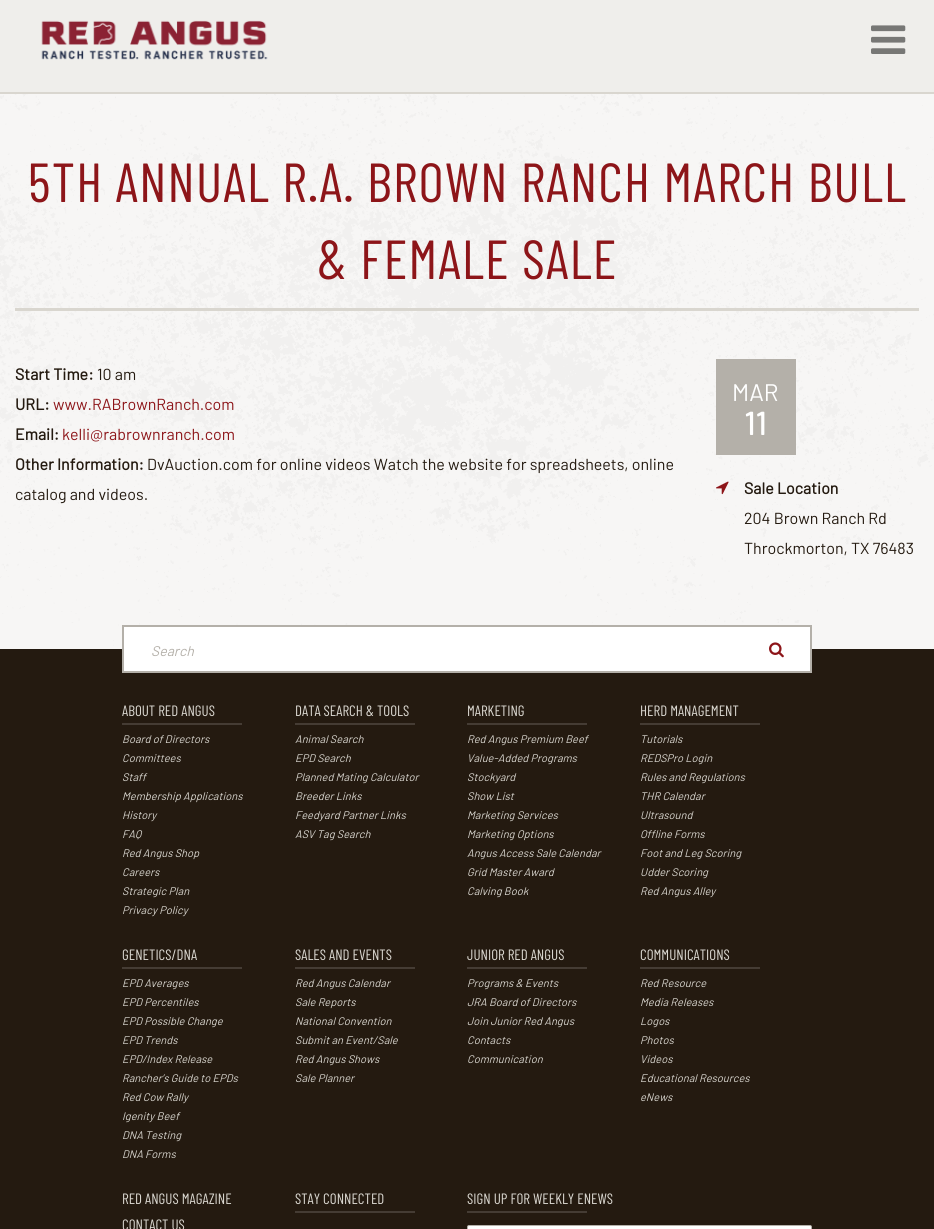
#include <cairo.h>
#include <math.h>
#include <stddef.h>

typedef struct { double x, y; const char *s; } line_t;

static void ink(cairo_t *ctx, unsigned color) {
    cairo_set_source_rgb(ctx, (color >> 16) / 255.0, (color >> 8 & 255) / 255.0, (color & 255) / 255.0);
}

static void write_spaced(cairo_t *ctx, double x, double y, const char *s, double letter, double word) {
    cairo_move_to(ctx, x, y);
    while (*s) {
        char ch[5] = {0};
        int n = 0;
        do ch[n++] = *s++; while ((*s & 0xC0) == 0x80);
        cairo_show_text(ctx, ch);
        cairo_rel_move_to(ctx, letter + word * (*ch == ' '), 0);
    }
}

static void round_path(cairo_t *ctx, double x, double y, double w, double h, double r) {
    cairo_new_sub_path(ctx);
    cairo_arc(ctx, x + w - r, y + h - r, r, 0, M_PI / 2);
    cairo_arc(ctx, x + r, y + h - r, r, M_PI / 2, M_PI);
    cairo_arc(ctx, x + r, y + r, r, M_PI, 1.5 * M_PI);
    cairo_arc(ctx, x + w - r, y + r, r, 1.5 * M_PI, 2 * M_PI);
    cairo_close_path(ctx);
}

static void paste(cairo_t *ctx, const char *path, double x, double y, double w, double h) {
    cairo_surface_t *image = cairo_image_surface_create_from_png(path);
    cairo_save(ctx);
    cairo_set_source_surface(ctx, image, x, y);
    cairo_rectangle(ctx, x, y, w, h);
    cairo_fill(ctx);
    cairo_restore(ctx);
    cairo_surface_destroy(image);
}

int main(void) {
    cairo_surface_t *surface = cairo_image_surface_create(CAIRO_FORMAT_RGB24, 934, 1229);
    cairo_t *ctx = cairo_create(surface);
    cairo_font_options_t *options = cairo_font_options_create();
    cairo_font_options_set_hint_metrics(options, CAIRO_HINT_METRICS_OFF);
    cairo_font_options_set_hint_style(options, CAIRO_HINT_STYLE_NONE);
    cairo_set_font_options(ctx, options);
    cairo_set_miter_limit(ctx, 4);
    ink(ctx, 0xFFFFFF);
    cairo_paint(ctx);
    paste(ctx, "media/1.png", 0, 94, 934, 555);
    ink(ctx, 0xEFEEEB);
    cairo_rectangle(ctx, 0, 0, 934, 92);
    cairo_fill(ctx);
    paste(ctx, "media/2.png", 41, 20, 227, 40);
    paste(ctx, "media/3.png", 871, 25, 35, 29);
    ink(ctx, 0xD9D6CF);
    cairo_rectangle(ctx, 0, 92, 934, 2);
    cairo_fill(ctx);
    cairo_rectangle(ctx, 15, 308, 904, 3);
    cairo_fill(ctx);
    cairo_select_font_face(ctx, "Barlow Condensed", CAIRO_FONT_SLANT_NORMAL, CAIRO_FONT_WEIGHT_NORMAL);
    cairo_set_font_size(ctx, 55);
    ink(ctx, 0x8D1519);
    write_spaced(ctx, 28, 202, "5TH ANNUAL R.A. BROWN RANCH MARCH BULL", 1.2, 0);
    write_spaced(ctx, 317, 279, "& FEMALE SALE", 1.2, 0);
    cairo_select_font_face(ctx, "Barlow", CAIRO_FONT_SLANT_NORMAL, CAIRO_FONT_WEIGHT_BOLD);
    cairo_set_font_size(ctx, 16);
    ink(ctx, 0x241A10);
    cairo_move_to(ctx, 15, 380);
    cairo_show_text(ctx, "Start Time:");
    cairo_select_font_face(ctx, "Barlow", CAIRO_FONT_SLANT_NORMAL, CAIRO_FONT_WEIGHT_NORMAL);
    cairo_move_to(ctx, 97, 380);
    cairo_show_text(ctx, "10 am");
    cairo_select_font_face(ctx, "Barlow", CAIRO_FONT_SLANT_NORMAL, CAIRO_FONT_WEIGHT_BOLD);
    cairo_move_to(ctx, 15, 410);
    cairo_show_text(ctx, "URL:");
    cairo_select_font_face(ctx, "Barlow", CAIRO_FONT_SLANT_NORMAL, CAIRO_FONT_WEIGHT_NORMAL);
    ink(ctx, 0x8D1519);
    cairo_move_to(ctx, 53, 410);
    cairo_show_text(ctx, "www.RABrownRanch.com");
    cairo_select_font_face(ctx, "Barlow", CAIRO_FONT_SLANT_NORMAL, CAIRO_FONT_WEIGHT_BOLD);
    ink(ctx, 0x241A10);
    cairo_move_to(ctx, 15, 440);
    cairo_show_text(ctx, "Email:");
    cairo_select_font_face(ctx, "Barlow", CAIRO_FONT_SLANT_NORMAL, CAIRO_FONT_WEIGHT_NORMAL);
    ink(ctx, 0x8D1519);
    cairo_move_to(ctx, 62, 440);
    cairo_show_text(ctx, "kelli@rabrownranch.com");
    cairo_select_font_face(ctx, "Barlow", CAIRO_FONT_SLANT_NORMAL, CAIRO_FONT_WEIGHT_BOLD);
    ink(ctx, 0x241A10);
    cairo_move_to(ctx, 15, 470);
    cairo_show_text(ctx, "Other Information:");
    cairo_select_font_face(ctx, "Barlow", CAIRO_FONT_SLANT_NORMAL, CAIRO_FONT_WEIGHT_NORMAL);
    cairo_move_to(ctx, 147, 470);
    cairo_show_text(ctx, "DvAuction.com for online videos Watch the website for spreadsheets, online");
    cairo_move_to(ctx, 15, 500);
    cairo_show_text(ctx, "catalog and videos.");
    ink(ctx, 0xB4B0A9);
    cairo_rectangle(ctx, 716, 359, 80, 96);
    cairo_fill(ctx);
    cairo_set_font_size(ctx, 24);
    ink(ctx, 0xFFFFFF);
    cairo_move_to(ctx, 732, 401);
    cairo_show_text(ctx, "MAR");
    cairo_select_font_face(ctx, "Barlow", CAIRO_FONT_SLANT_NORMAL, CAIRO_FONT_WEIGHT_BOLD);
    cairo_set_font_size(ctx, 32);
    cairo_move_to(ctx, 744, 435);
    cairo_show_text(ctx, "11");
    paste(ctx, "media/4.png", 716, 481, 13, 14);
    cairo_set_font_size(ctx, 16);
    ink(ctx, 0x241A10);
    cairo_move_to(ctx, 744, 494);
    cairo_show_text(ctx, "Sale Location");
    cairo_select_font_face(ctx, "Barlow", CAIRO_FONT_SLANT_NORMAL, CAIRO_FONT_WEIGHT_NORMAL);
    cairo_move_to(ctx, 744, 524);
    cairo_show_text(ctx, "204 Brown Ranch Rd");
    cairo_move_to(ctx, 744, 554);
    cairo_show_text(ctx, "Throckmorton, TX 76483");
    cairo_rectangle(ctx, 0, 649, 934, 580);
    cairo_fill(ctx);
    ink(ctx, 0xFFFFFF);
    cairo_rectangle(ctx, 123, 626, 688, 46);
    cairo_fill_preserve(ctx);
    ink(ctx, 0xB4B0A9);
    cairo_stroke(ctx);
    cairo_select_font_face(ctx, "Barlow", CAIRO_FONT_SLANT_ITALIC, CAIRO_FONT_WEIGHT_NORMAL);
    cairo_set_font_size(ctx, 14);
    cairo_move_to(ctx, 151, 656);
    cairo_show_text(ctx, "Search");
    paste(ctx, "media/5.png", 769, 642, 15, 16);
    ink(ctx, 0x453C34);
    cairo_rectangle(ctx, 122, 723, 120, 2);
    cairo_fill(ctx);
    cairo_select_font_face(ctx, "Barlow Condensed", CAIRO_FONT_SLANT_NORMAL, CAIRO_FONT_WEIGHT_NORMAL);
    cairo_set_font_size(ctx, 15);
    ink(ctx, 0xD9D6CF);
    cairo_move_to(ctx, 122, 716);
    cairo_show_text(ctx, "ABOUT RED ANGUS");
    cairo_select_font_face(ctx, "Barlow", CAIRO_FONT_SLANT_ITALIC, CAIRO_FONT_WEIGHT_NORMAL);
    cairo_set_font_size(ctx, 11);
    {
        static const line_t items[] = {
            {122, 743, "Board of Directors"},
            {122, 762, "Committees"},
            {122, 781, "Staff"},
            {122, 800, "Membership Applications"},
            {122, 819, "History"},
            {122, 838, "FAQ"},
            {122, 857, "Red Angus Shop"},
            {122, 876, "Careers"},
            {122, 895, "Strategic Plan"},
            {122, 914, "Privacy Policy"},
        };
        for (size_t i = 0; i < sizeof items / sizeof *items; i++) {
            cairo_move_to(ctx, items[i].x, items[i].y);
            cairo_show_text(ctx, items[i].s);
        }
    }
    ink(ctx, 0x453C34);
    cairo_rectangle(ctx, 295, 723, 120, 2);
    cairo_fill(ctx);
    cairo_select_font_face(ctx, "Barlow Condensed", CAIRO_FONT_SLANT_NORMAL, CAIRO_FONT_WEIGHT_NORMAL);
    cairo_set_font_size(ctx, 15);
    ink(ctx, 0xD9D6CF);
    cairo_move_to(ctx, 295, 716);
    cairo_show_text(ctx, "DATA SEARCH & TOOLS");
    cairo_select_font_face(ctx, "Barlow", CAIRO_FONT_SLANT_ITALIC, CAIRO_FONT_WEIGHT_NORMAL);
    cairo_set_font_size(ctx, 11);
    {
        static const line_t items[] = {
            {295, 743, "Animal Search"},
            {295, 762, "EPD Search"},
            {295, 781, "Planned Mating Calculator"},
            {295, 800, "Breeder Links"},
            {295, 819, "Feedyard Partner Links"},
            {295, 838, "ASV Tag Search"},
        };
        for (size_t i = 0; i < sizeof items / sizeof *items; i++) {
            cairo_move_to(ctx, items[i].x, items[i].y);
            cairo_show_text(ctx, items[i].s);
        }
    }
    ink(ctx, 0x453C34);
    cairo_rectangle(ctx, 467, 723, 120, 2);
    cairo_fill(ctx);
    cairo_select_font_face(ctx, "Barlow Condensed", CAIRO_FONT_SLANT_NORMAL, CAIRO_FONT_WEIGHT_NORMAL);
    cairo_set_font_size(ctx, 15);
    ink(ctx, 0xD9D6CF);
    cairo_move_to(ctx, 467, 716);
    cairo_show_text(ctx, "MARKETING");
    cairo_select_font_face(ctx, "Barlow", CAIRO_FONT_SLANT_ITALIC, CAIRO_FONT_WEIGHT_NORMAL);
    cairo_set_font_size(ctx, 11);
    {
        static const line_t items[] = {
            {467, 743, "Red Angus Premium Beef"},
            {467, 762, "Value-Added Programs"},
            {467, 781, "Stockyard"},
            {467, 800, "Show List"},
            {467, 819, "Marketing Services"},
            {467, 838, "Marketing Options"},
            {467, 857, "Angus Access Sale Calendar"},
            {467, 876, "Grid Master Award"},
            {467, 895, "Calving Book"},
        };
        for (size_t i = 0; i < sizeof items / sizeof *items; i++) {
            cairo_move_to(ctx, items[i].x, items[i].y);
            cairo_show_text(ctx, items[i].s);
        }
    }
    ink(ctx, 0x453C34);
    cairo_rectangle(ctx, 640, 723, 120, 2);
    cairo_fill(ctx);
    cairo_select_font_face(ctx, "Barlow Condensed", CAIRO_FONT_SLANT_NORMAL, CAIRO_FONT_WEIGHT_NORMAL);
    cairo_set_font_size(ctx, 15);
    ink(ctx, 0xD9D6CF);
    cairo_move_to(ctx, 640, 716);
    cairo_show_text(ctx, "HERD MANAGEMENT");
    cairo_select_font_face(ctx, "Barlow", CAIRO_FONT_SLANT_ITALIC, CAIRO_FONT_WEIGHT_NORMAL);
    cairo_set_font_size(ctx, 11);
    {
        static const line_t items[] = {
            {640, 743, "Tutorials"},
            {640, 762, "REDSPro Login"},
            {640, 781, "Rules and Regulations"},
            {640, 800, "THR Calendar"},
            {640, 819, "Ultrasound"},
            {640, 838, "Offline Forms"},
            {640, 857, "Foot and Leg Scoring"},
            {640, 876, "Udder Scoring"},
            {640, 895, "Red Angus Alley"},
        };
        for (size_t i = 0; i < sizeof items / sizeof *items; i++) {
            cairo_move_to(ctx, items[i].x, items[i].y);
            cairo_show_text(ctx, items[i].s);
        }
    }
    ink(ctx, 0x453C34);
    cairo_rectangle(ctx, 122, 967, 120, 2);
    cairo_fill(ctx);
    cairo_select_font_face(ctx, "Barlow Condensed", CAIRO_FONT_SLANT_NORMAL, CAIRO_FONT_WEIGHT_NORMAL);
    cairo_set_font_size(ctx, 15);
    ink(ctx, 0xD9D6CF);
    cairo_move_to(ctx, 122, 960);
    cairo_show_text(ctx, "GENETICS/DNA");
    cairo_select_font_face(ctx, "Barlow", CAIRO_FONT_SLANT_ITALIC, CAIRO_FONT_WEIGHT_NORMAL);
    cairo_set_font_size(ctx, 11);
    {
        static const line_t items[] = {
            {122, 987, "EPD Averages"},
            {122, 1006, "EPD Percentiles"},
            {122, 1025, "EPD Possible Change"},
            {122, 1044, "EPD Trends"},
            {122, 1063, "EPD/Index Release"},
            {122, 1082, "Rancher’s Guide to EPDs"},
            {122, 1101, "Red Cow Rally"},
            {122, 1120, "Igenity Beef"},
            {122, 1139, "DNA Testing"},
            {122, 1158, "DNA Forms"},
        };
        for (size_t i = 0; i < sizeof items / sizeof *items; i++) {
            cairo_move_to(ctx, items[i].x, items[i].y);
            cairo_show_text(ctx, items[i].s);
        }
    }
    ink(ctx, 0x453C34);
    cairo_rectangle(ctx, 295, 967, 120, 2);
    cairo_fill(ctx);
    cairo_select_font_face(ctx, "Barlow Condensed", CAIRO_FONT_SLANT_NORMAL, CAIRO_FONT_WEIGHT_NORMAL);
    cairo_set_font_size(ctx, 15);
    ink(ctx, 0xD9D6CF);
    cairo_move_to(ctx, 295, 960);
    cairo_show_text(ctx, "SALES AND EVENTS");
    cairo_select_font_face(ctx, "Barlow", CAIRO_FONT_SLANT_ITALIC, CAIRO_FONT_WEIGHT_NORMAL);
    cairo_set_font_size(ctx, 11);
    {
        static const line_t items[] = {
            {295, 987, "Red Angus Calendar"},
            {295, 1006, "Sale Reports"},
            {295, 1025, "National Convention"},
            {295, 1044, "Submit an Event/Sale"},
            {295, 1063, "Red Angus Shows"},
            {295, 1082, "Sale Planner"},
        };
        for (size_t i = 0; i < sizeof items / sizeof *items; i++) {
            cairo_move_to(ctx, items[i].x, items[i].y);
            cairo_show_text(ctx, items[i].s);
        }
    }
    ink(ctx, 0x453C34);
    cairo_rectangle(ctx, 467, 967, 120, 2);
    cairo_fill(ctx);
    cairo_select_font_face(ctx, "Barlow Condensed", CAIRO_FONT_SLANT_NORMAL, CAIRO_FONT_WEIGHT_NORMAL);
    cairo_set_font_size(ctx, 15);
    ink(ctx, 0xD9D6CF);
    cairo_move_to(ctx, 467, 960);
    cairo_show_text(ctx, "JUNIOR RED ANGUS");
    cairo_select_font_face(ctx, "Barlow", CAIRO_FONT_SLANT_ITALIC, CAIRO_FONT_WEIGHT_NORMAL);
    cairo_set_font_size(ctx, 11);
    {
        static const line_t items[] = {
            {467, 987, "Programs & Events"},
            {467, 1006, "JRA Board of Directors"},
            {467, 1025, "Join Junior Red Angus"},
            {467, 1044, "Contacts"},
            {467, 1063, "Communication"},
        };
        for (size_t i = 0; i < sizeof items / sizeof *items; i++) {
            cairo_move_to(ctx, items[i].x, items[i].y);
            cairo_show_text(ctx, items[i].s);
        }
    }
    ink(ctx, 0x453C34);
    cairo_rectangle(ctx, 640, 967, 120, 2);
    cairo_fill(ctx);
    cairo_select_font_face(ctx, "Barlow Condensed", CAIRO_FONT_SLANT_NORMAL, CAIRO_FONT_WEIGHT_NORMAL);
    cairo_set_font_size(ctx, 15);
    ink(ctx, 0xD9D6CF);
    cairo_move_to(ctx, 640, 960);
    cairo_show_text(ctx, "COMMUNICATIONS");
    cairo_select_font_face(ctx, "Barlow", CAIRO_FONT_SLANT_ITALIC, CAIRO_FONT_WEIGHT_NORMAL);
    cairo_set_font_size(ctx, 11);
    {
        static const line_t items[] = {
            {640, 987, "Red Resource"},
            {640, 1006, "Media Releases"},
            {640, 1025, "Logos"},
            {640, 1044, "Photos"},
            {640, 1063, "Videos"},
            {640, 1082, "Educational Resources"},
            {640, 1101, "eNews"},
        };
        for (size_t i = 0; i < sizeof items / sizeof *items; i++) {
            cairo_move_to(ctx, items[i].x, items[i].y);
            cairo_show_text(ctx, items[i].s);
        }
    }
    cairo_select_font_face(ctx, "Barlow Condensed", CAIRO_FONT_SLANT_NORMAL, CAIRO_FONT_WEIGHT_NORMAL);
    cairo_set_font_size(ctx, 15);
    cairo_move_to(ctx, 122, 1204);
    cairo_show_text(ctx, "RED ANGUS MAGAZINE");
    cairo_move_to(ctx, 122, 1230);
    cairo_show_text(ctx, "CONTACT US");
    ink(ctx, 0x453C34);
    cairo_rectangle(ctx, 295, 1211, 120, 2);
    cairo_fill(ctx);
    ink(ctx, 0xD9D6CF);
    cairo_move_to(ctx, 295, 1204);
    cairo_show_text(ctx, "STAY CONNECTED");
    ink(ctx, 0x453C34);
    cairo_rectangle(ctx, 467, 1211, 120, 2);
    cairo_fill(ctx);
    ink(ctx, 0xD9D6CF);
    cairo_move_to(ctx, 467, 1204);
    cairo_show_text(ctx, "SIGN UP FOR WEEKLY ENEWS");
    ink(ctx, 0xFFFFFF);
    round_path(ctx, 467.5, 1225.5, 344, 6, 1.5);
    cairo_fill_preserve(ctx);
    ink(ctx, 0xB4B0A9);
    cairo_set_line_width(ctx, 1);
    cairo_stroke(ctx);
    cairo_surface_write_to_png(surface, "image.png");
    cairo_font_options_destroy(options);
    cairo_destroy(ctx);
    cairo_surface_destroy(surface);
    return 0;
}
